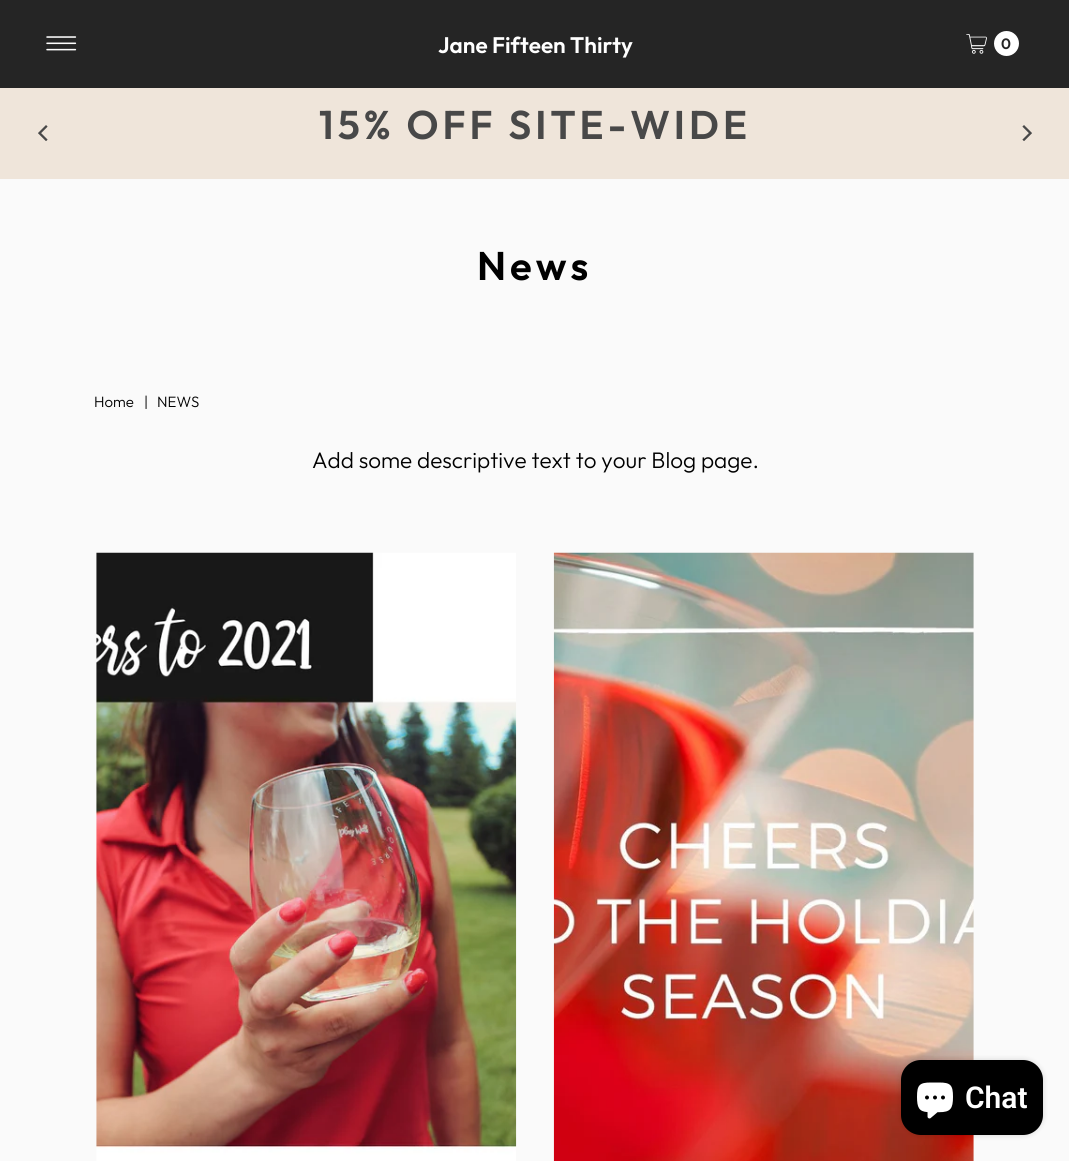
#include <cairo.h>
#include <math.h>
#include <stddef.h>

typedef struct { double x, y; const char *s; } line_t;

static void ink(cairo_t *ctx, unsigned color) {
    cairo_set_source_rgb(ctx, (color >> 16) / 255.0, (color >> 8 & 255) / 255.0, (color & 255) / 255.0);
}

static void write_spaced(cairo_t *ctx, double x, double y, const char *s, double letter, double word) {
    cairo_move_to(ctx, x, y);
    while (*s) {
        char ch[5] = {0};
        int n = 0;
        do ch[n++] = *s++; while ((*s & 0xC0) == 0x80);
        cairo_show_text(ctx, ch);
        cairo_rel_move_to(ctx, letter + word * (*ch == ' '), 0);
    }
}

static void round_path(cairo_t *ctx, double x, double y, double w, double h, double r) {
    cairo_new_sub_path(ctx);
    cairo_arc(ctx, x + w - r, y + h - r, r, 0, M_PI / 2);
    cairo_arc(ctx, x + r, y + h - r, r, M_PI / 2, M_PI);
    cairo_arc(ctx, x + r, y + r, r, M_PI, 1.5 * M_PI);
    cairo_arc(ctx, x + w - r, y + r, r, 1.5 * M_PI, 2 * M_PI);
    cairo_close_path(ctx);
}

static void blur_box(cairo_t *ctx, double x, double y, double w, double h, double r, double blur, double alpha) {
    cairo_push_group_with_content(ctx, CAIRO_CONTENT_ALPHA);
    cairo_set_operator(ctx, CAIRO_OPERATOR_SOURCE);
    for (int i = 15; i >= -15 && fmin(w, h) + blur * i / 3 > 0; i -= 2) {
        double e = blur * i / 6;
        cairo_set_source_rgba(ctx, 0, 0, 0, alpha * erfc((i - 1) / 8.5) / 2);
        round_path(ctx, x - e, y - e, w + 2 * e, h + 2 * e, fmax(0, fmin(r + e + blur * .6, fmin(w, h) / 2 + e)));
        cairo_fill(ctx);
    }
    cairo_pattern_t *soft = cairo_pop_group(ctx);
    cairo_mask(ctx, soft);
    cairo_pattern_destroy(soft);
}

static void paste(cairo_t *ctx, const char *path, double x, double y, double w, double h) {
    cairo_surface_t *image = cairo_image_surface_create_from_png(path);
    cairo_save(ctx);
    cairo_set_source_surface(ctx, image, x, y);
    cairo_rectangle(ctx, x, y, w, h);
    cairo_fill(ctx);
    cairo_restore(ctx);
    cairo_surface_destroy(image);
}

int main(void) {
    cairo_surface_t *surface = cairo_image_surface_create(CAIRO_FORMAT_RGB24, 1069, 1161);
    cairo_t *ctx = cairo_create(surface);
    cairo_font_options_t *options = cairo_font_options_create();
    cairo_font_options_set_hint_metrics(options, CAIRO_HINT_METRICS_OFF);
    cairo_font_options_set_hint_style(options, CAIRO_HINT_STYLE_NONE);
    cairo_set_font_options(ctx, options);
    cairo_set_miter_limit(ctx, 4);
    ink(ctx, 0xFAFAFA);
    cairo_paint(ctx);
    ink(ctx, 0x252525);
    cairo_rectangle(ctx, 0, 0, 1069, 88);
    cairo_fill(ctx);
    paste(ctx, "media/1.png", 46, 36, 31, 15);
    cairo_select_font_face(ctx, "Outfit SemiBold", CAIRO_FONT_SLANT_NORMAL, CAIRO_FONT_WEIGHT_NORMAL);
    cairo_set_font_size(ctx, 22.5);
    ink(ctx, 0xFFFFFF);
    cairo_move_to(ctx, 438, 53);
    cairo_show_text(ctx, "Jane Fifteen Thirty");
    paste(ctx, "media/2.png", 966, 34, 21, 20);
    cairo_arc(ctx, 1006.5, 43.5, 12.5, 0, 2 * M_PI);
    cairo_fill(ctx);
    cairo_set_font_size(ctx, 15);
    ink(ctx, 0x252525);
    cairo_move_to(ctx, 1001, 49);
    cairo_show_text(ctx, "0");
    ink(ctx, 0xEFE5DA);
    cairo_rectangle(ctx, 0, 88, 1069, 91);
    cairo_fill(ctx);
    paste(ctx, "media/3.png", 38, 125, 10, 16);
    cairo_set_font_size(ctx, 40);
    ink(ctx, 0x484848);
    write_spaced(ctx, 319, 139, "15% OFF SITE-WIDE", 4, 0);
    paste(ctx, "media/4.png", 1022, 125, 10, 16);
    ink(ctx, 0x000000);
    write_spaced(ctx, 477, 280, "News", 4, 0);
    cairo_select_font_face(ctx, "Outfit Light", CAIRO_FONT_SLANT_NORMAL, CAIRO_FONT_WEIGHT_NORMAL);
    cairo_set_font_size(ctx, 15);
    {
        static const line_t items[] = {
            {94, 407, "Home"},
            {144, 407, "|"},
            {157, 407, "NEWS"},
        };
        for (size_t i = 0; i < sizeof items / sizeof *items; i++) {
            cairo_move_to(ctx, items[i].x, items[i].y);
            cairo_show_text(ctx, items[i].s);
        }
    }
    cairo_set_font_size(ctx, 22.5);
    cairo_move_to(ctx, 312, 468);
    cairo_show_text(ctx, "Add some descriptive text to your Blog page.");
    paste(ctx, "media/5.png", 96, 552, 421, 609);
    paste(ctx, "media/6.png", 553, 552, 421, 609);
    ink(ctx, 0x000000);
    blur_box(ctx, 901, 1060, 142, 75, 20, 3, 0.15);
    ink(ctx, 0x000000);
    round_path(ctx, 901, 1060, 142, 75, 20);
    cairo_fill(ctx);
    paste(ctx, "media/7.png", 917, 1082, 36, 37);
    cairo_select_font_face(ctx, "Roboto SemiBold", CAIRO_FONT_SLANT_NORMAL, CAIRO_FONT_WEIGHT_NORMAL);
    cairo_set_font_size(ctx, 30);
    ink(ctx, 0xFFFFFF);
    cairo_move_to(ctx, 965, 1108);
    cairo_show_text(ctx, "Chat");
    cairo_surface_write_to_png(surface, "image.png");
    cairo_font_options_destroy(options);
    cairo_destroy(ctx);
    cairo_surface_destroy(surface);
    return 0;
}
